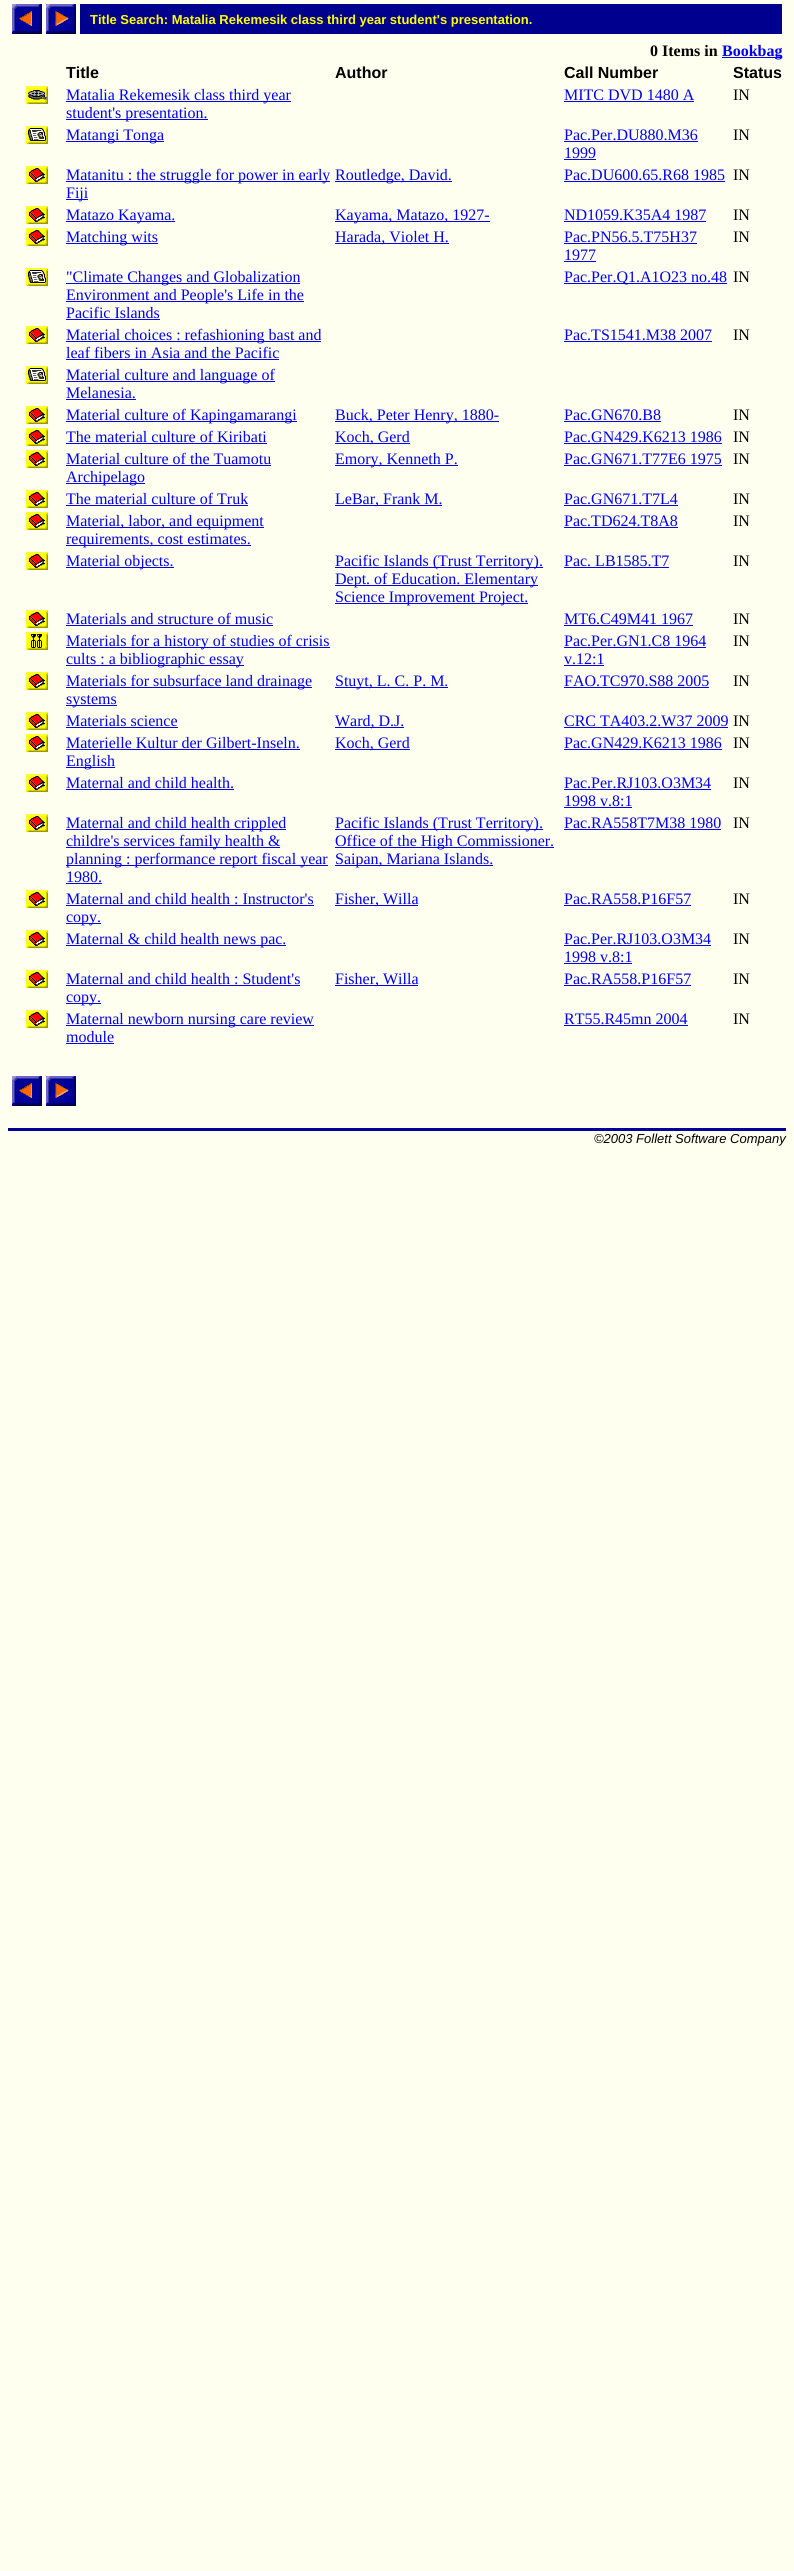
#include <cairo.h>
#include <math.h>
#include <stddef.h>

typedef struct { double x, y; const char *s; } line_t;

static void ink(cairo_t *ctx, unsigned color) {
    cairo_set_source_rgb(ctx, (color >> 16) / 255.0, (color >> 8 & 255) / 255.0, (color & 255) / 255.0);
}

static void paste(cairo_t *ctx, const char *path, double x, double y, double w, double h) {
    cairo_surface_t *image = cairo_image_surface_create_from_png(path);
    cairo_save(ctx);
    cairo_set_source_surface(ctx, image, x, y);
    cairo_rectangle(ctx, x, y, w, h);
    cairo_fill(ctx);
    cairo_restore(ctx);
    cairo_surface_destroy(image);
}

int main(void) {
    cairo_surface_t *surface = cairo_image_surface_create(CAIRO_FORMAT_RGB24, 794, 2571);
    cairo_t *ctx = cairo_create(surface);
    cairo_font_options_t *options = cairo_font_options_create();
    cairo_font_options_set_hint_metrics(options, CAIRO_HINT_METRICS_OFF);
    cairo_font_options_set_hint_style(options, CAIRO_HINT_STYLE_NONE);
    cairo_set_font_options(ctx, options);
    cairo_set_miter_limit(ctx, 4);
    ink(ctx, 0xFFFFEF);
    cairo_paint(ctx);
    paste(ctx, "media/1.png", 12, 4, 30, 30);
    paste(ctx, "media/2.png", 46, 4, 30, 30);
    ink(ctx, 0x00008E);
    cairo_rectangle(ctx, 80, 4, 702, 30);
    cairo_fill(ctx);
    cairo_select_font_face(ctx, "Liberation Sans", CAIRO_FONT_SLANT_NORMAL, CAIRO_FONT_WEIGHT_BOLD);
    cairo_set_font_size(ctx, 13);
    ink(ctx, 0xFFFF00);
    cairo_move_to(ctx, 90, 24);
    cairo_show_text(ctx, "Title Search: Matalia Rekemesik class third year student's presentation.");
    cairo_select_font_face(ctx, "Liberation Serif", CAIRO_FONT_SLANT_NORMAL, CAIRO_FONT_WEIGHT_BOLD);
    cairo_set_font_size(ctx, 16);
    ink(ctx, 0x000000);
    cairo_move_to(ctx, 650, 56);
    cairo_show_text(ctx, "0 Items in");
    ink(ctx, 0x0000EE);
    cairo_rectangle(ctx, 722, 57, 60, 1);
    cairo_fill(ctx);
    cairo_move_to(ctx, 722, 56);
    cairo_show_text(ctx, "Bookbag");
    cairo_select_font_face(ctx, "Liberation Sans", CAIRO_FONT_SLANT_NORMAL, CAIRO_FONT_WEIGHT_BOLD);
    ink(ctx, 0x000000);
    {
        static const line_t items[] = {
            {66, 78, "Title"},
            {335, 78, "Author"},
            {564, 78, "Call Number"},
            {733, 78, "Status"},
        };
        for (size_t i = 0; i < sizeof items / sizeof *items; i++) {
            cairo_move_to(ctx, items[i].x, items[i].y);
            cairo_show_text(ctx, items[i].s);
        }
    }
    paste(ctx, "media/3.png", 26, 86, 22, 18);
    ink(ctx, 0x0000EE);
    cairo_rectangle(ctx, 66, 101, 225, 1);
    cairo_fill(ctx);
    cairo_select_font_face(ctx, "Liberation Serif", CAIRO_FONT_SLANT_NORMAL, CAIRO_FONT_WEIGHT_NORMAL);
    cairo_move_to(ctx, 66, 100);
    cairo_show_text(ctx, "Matalia Rekemesik class third year");
    cairo_rectangle(ctx, 66, 119, 142, 1);
    cairo_fill(ctx);
    cairo_move_to(ctx, 66, 118);
    cairo_show_text(ctx, "student's presentation.");
    cairo_move_to(ctx, 564, 100);
    cairo_show_text(ctx, "MITC DVD 1480 A");
    cairo_rectangle(ctx, 564, 101, 130, 1);
    cairo_fill(ctx);
    ink(ctx, 0x000000);
    cairo_move_to(ctx, 733, 100);
    cairo_show_text(ctx, "IN");
    paste(ctx, "media/4.png", 26, 126, 22, 18);
    ink(ctx, 0x0000EE);
    cairo_rectangle(ctx, 66, 141, 98, 1);
    cairo_fill(ctx);
    cairo_move_to(ctx, 66, 140);
    cairo_show_text(ctx, "Matangi Tonga");
    cairo_move_to(ctx, 564, 140);
    cairo_show_text(ctx, "Pac.Per.DU880.M36");
    cairo_rectangle(ctx, 564, 141, 134, 1);
    cairo_fill(ctx);
    cairo_move_to(ctx, 564, 158);
    cairo_show_text(ctx, "1999");
    cairo_rectangle(ctx, 564, 159, 32, 1);
    cairo_fill(ctx);
    ink(ctx, 0x000000);
    cairo_move_to(ctx, 733, 140);
    cairo_show_text(ctx, "IN");
    paste(ctx, "media/5.png", 26, 166, 22, 18);
    ink(ctx, 0x0000EE);
    cairo_rectangle(ctx, 66, 181, 264, 1);
    cairo_fill(ctx);
    cairo_move_to(ctx, 66, 180);
    cairo_show_text(ctx, "Matanitu : the struggle for power in early");
    cairo_rectangle(ctx, 66, 199, 22, 1);
    cairo_fill(ctx);
    cairo_move_to(ctx, 66, 198);
    cairo_show_text(ctx, "Fiji");
    cairo_rectangle(ctx, 335, 181, 117, 1);
    cairo_fill(ctx);
    cairo_move_to(ctx, 335, 180);
    cairo_show_text(ctx, "Routledge, David.");
    cairo_move_to(ctx, 564, 180);
    cairo_show_text(ctx, "Pac.DU600.65.R68 1985");
    cairo_rectangle(ctx, 564, 181, 161, 1);
    cairo_fill(ctx);
    ink(ctx, 0x000000);
    cairo_move_to(ctx, 733, 180);
    cairo_show_text(ctx, "IN");
    paste(ctx, "media/5.png", 26, 206, 22, 18);
    ink(ctx, 0x0000EE);
    cairo_rectangle(ctx, 66, 221, 109, 1);
    cairo_fill(ctx);
    cairo_move_to(ctx, 66, 220);
    cairo_show_text(ctx, "Matazo Kayama.");
    cairo_rectangle(ctx, 335, 221, 155, 1);
    cairo_fill(ctx);
    cairo_move_to(ctx, 335, 220);
    cairo_show_text(ctx, "Kayama, Matazo, 1927-");
    cairo_move_to(ctx, 564, 220);
    cairo_show_text(ctx, "ND1059.K35A4 1987");
    cairo_rectangle(ctx, 564, 221, 142, 1);
    cairo_fill(ctx);
    ink(ctx, 0x000000);
    cairo_move_to(ctx, 733, 220);
    cairo_show_text(ctx, "IN");
    paste(ctx, "media/5.png", 26, 228, 22, 18);
    ink(ctx, 0x0000EE);
    cairo_rectangle(ctx, 66, 243, 92, 1);
    cairo_fill(ctx);
    cairo_move_to(ctx, 66, 242);
    cairo_show_text(ctx, "Matching wits");
    cairo_rectangle(ctx, 335, 243, 114, 1);
    cairo_fill(ctx);
    cairo_move_to(ctx, 335, 242);
    cairo_show_text(ctx, "Harada, Violet H.");
    cairo_move_to(ctx, 564, 242);
    cairo_show_text(ctx, "Pac.PN56.5.T75H37");
    cairo_rectangle(ctx, 564, 243, 133, 1);
    cairo_fill(ctx);
    cairo_move_to(ctx, 564, 260);
    cairo_show_text(ctx, "1977");
    cairo_rectangle(ctx, 564, 261, 32, 1);
    cairo_fill(ctx);
    ink(ctx, 0x000000);
    cairo_move_to(ctx, 733, 242);
    cairo_show_text(ctx, "IN");
    paste(ctx, "media/4.png", 26, 268, 22, 18);
    ink(ctx, 0x0000EE);
    cairo_rectangle(ctx, 66, 283, 234, 1);
    cairo_fill(ctx);
    cairo_move_to(ctx, 66, 282);
    cairo_show_text(ctx, "\"Climate Changes and Globalization");
    cairo_rectangle(ctx, 66, 301, 238, 1);
    cairo_fill(ctx);
    cairo_move_to(ctx, 66, 300);
    cairo_show_text(ctx, "Environment and People's Life in the");
    cairo_move_to(ctx, 66, 318);
    cairo_show_text(ctx, "Pacific Islands");
    cairo_rectangle(ctx, 66, 319, 94, 1);
    cairo_fill(ctx);
    cairo_rectangle(ctx, 564, 283, 163, 1);
    cairo_fill(ctx);
    cairo_move_to(ctx, 564, 282);
    cairo_show_text(ctx, "Pac.Per.Q1.A1O23 no.48");
    ink(ctx, 0x000000);
    cairo_move_to(ctx, 733, 282);
    cairo_show_text(ctx, "IN");
    paste(ctx, "media/5.png", 26, 326, 22, 18);
    ink(ctx, 0x0000EE);
    cairo_rectangle(ctx, 66, 341, 255, 1);
    cairo_fill(ctx);
    cairo_move_to(ctx, 66, 340);
    cairo_show_text(ctx, "Material choices : refashioning bast and");
    cairo_move_to(ctx, 66, 358);
    cairo_show_text(ctx, "leaf fibers in Asia and the Pacific");
    cairo_rectangle(ctx, 66, 359, 213, 1);
    cairo_fill(ctx);
    cairo_move_to(ctx, 564, 340);
    cairo_show_text(ctx, "Pac.TS1541.M38 2007");
    cairo_rectangle(ctx, 564, 341, 148, 1);
    cairo_fill(ctx);
    ink(ctx, 0x000000);
    cairo_move_to(ctx, 733, 340);
    cairo_show_text(ctx, "IN");
    paste(ctx, "media/4.png", 26, 366, 22, 18);
    ink(ctx, 0x0000EE);
    cairo_rectangle(ctx, 66, 381, 209, 1);
    cairo_fill(ctx);
    cairo_move_to(ctx, 66, 380);
    cairo_show_text(ctx, "Material culture and language of");
    cairo_move_to(ctx, 66, 398);
    cairo_show_text(ctx, "Melanesia.");
    cairo_rectangle(ctx, 66, 399, 70, 1);
    cairo_fill(ctx);
    paste(ctx, "media/5.png", 26, 406, 22, 18);
    cairo_rectangle(ctx, 66, 421, 231, 1);
    cairo_fill(ctx);
    cairo_move_to(ctx, 66, 420);
    cairo_show_text(ctx, "Material culture of Kapingamarangi");
    cairo_rectangle(ctx, 335, 421, 164, 1);
    cairo_fill(ctx);
    cairo_move_to(ctx, 335, 420);
    cairo_show_text(ctx, "Buck, Peter Henry, 1880-");
    cairo_move_to(ctx, 564, 420);
    cairo_show_text(ctx, "Pac.GN670.B8");
    cairo_rectangle(ctx, 564, 421, 97, 1);
    cairo_fill(ctx);
    ink(ctx, 0x000000);
    cairo_move_to(ctx, 733, 420);
    cairo_show_text(ctx, "IN");
    paste(ctx, "media/5.png", 26, 428, 22, 18);
    ink(ctx, 0x0000EE);
    cairo_move_to(ctx, 66, 442);
    cairo_show_text(ctx, "The material culture of Kiribati");
    cairo_rectangle(ctx, 66, 443, 201, 1);
    cairo_fill(ctx);
    cairo_rectangle(ctx, 335, 443, 75, 1);
    cairo_fill(ctx);
    cairo_move_to(ctx, 335, 442);
    cairo_show_text(ctx, "Koch, Gerd");
    cairo_move_to(ctx, 564, 442);
    cairo_show_text(ctx, "Pac.GN429.K6213 1986");
    cairo_rectangle(ctx, 564, 443, 158, 1);
    cairo_fill(ctx);
    ink(ctx, 0x000000);
    cairo_move_to(ctx, 733, 442);
    cairo_show_text(ctx, "IN");
    paste(ctx, "media/5.png", 26, 450, 22, 18);
    ink(ctx, 0x0000EE);
    cairo_move_to(ctx, 66, 464);
    cairo_show_text(ctx, "Material culture of the Tuamotu");
    cairo_rectangle(ctx, 66, 465, 205, 1);
    cairo_fill(ctx);
    cairo_rectangle(ctx, 66, 483, 79, 1);
    cairo_fill(ctx);
    cairo_move_to(ctx, 66, 482);
    cairo_show_text(ctx, "Archipelago");
    cairo_rectangle(ctx, 335, 465, 123, 1);
    cairo_fill(ctx);
    cairo_move_to(ctx, 335, 464);
    cairo_show_text(ctx, "Emory, Kenneth P.");
    cairo_move_to(ctx, 564, 464);
    cairo_show_text(ctx, "Pac.GN671.T77E6 1975");
    cairo_rectangle(ctx, 564, 465, 158, 1);
    cairo_fill(ctx);
    ink(ctx, 0x000000);
    cairo_move_to(ctx, 733, 464);
    cairo_show_text(ctx, "IN");
    paste(ctx, "media/5.png", 26, 490, 22, 18);
    ink(ctx, 0x0000EE);
    cairo_move_to(ctx, 66, 504);
    cairo_show_text(ctx, "The material culture of Truk");
    cairo_rectangle(ctx, 66, 505, 182, 1);
    cairo_fill(ctx);
    cairo_rectangle(ctx, 335, 505, 107, 1);
    cairo_fill(ctx);
    cairo_move_to(ctx, 335, 504);
    cairo_show_text(ctx, "LeBar, Frank M.");
    cairo_move_to(ctx, 564, 504);
    cairo_show_text(ctx, "Pac.GN671.T7L4");
    cairo_rectangle(ctx, 564, 505, 114, 1);
    cairo_fill(ctx);
    ink(ctx, 0x000000);
    cairo_move_to(ctx, 733, 504);
    cairo_show_text(ctx, "IN");
    paste(ctx, "media/5.png", 26, 512, 22, 18);
    ink(ctx, 0x0000EE);
    cairo_rectangle(ctx, 66, 527, 198, 1);
    cairo_fill(ctx);
    cairo_move_to(ctx, 66, 526);
    cairo_show_text(ctx, "Material, labor, and equipment");
    cairo_rectangle(ctx, 66, 545, 185, 1);
    cairo_fill(ctx);
    cairo_move_to(ctx, 66, 544);
    cairo_show_text(ctx, "requirements, cost estimates.");
    cairo_move_to(ctx, 564, 526);
    cairo_show_text(ctx, "Pac.TD624.T8A8");
    cairo_rectangle(ctx, 564, 527, 114, 1);
    cairo_fill(ctx);
    ink(ctx, 0x000000);
    cairo_move_to(ctx, 733, 526);
    cairo_show_text(ctx, "IN");
    paste(ctx, "media/5.png", 26, 552, 22, 18);
    ink(ctx, 0x0000EE);
    cairo_rectangle(ctx, 66, 567, 108, 1);
    cairo_fill(ctx);
    cairo_move_to(ctx, 66, 566);
    cairo_show_text(ctx, "Material objects.");
    cairo_rectangle(ctx, 335, 567, 208, 1);
    cairo_fill(ctx);
    cairo_move_to(ctx, 335, 566);
    cairo_show_text(ctx, "Pacific Islands (Trust Territory).");
    cairo_rectangle(ctx, 335, 585, 203, 1);
    cairo_fill(ctx);
    cairo_move_to(ctx, 335, 584);
    cairo_show_text(ctx, "Dept. of Education. Elementary");
    cairo_rectangle(ctx, 335, 603, 193, 1);
    cairo_fill(ctx);
    cairo_move_to(ctx, 335, 602);
    cairo_show_text(ctx, "Science Improvement Project.");
    cairo_move_to(ctx, 564, 566);
    cairo_show_text(ctx, "Pac. LB1585.T7");
    cairo_rectangle(ctx, 564, 567, 105, 1);
    cairo_fill(ctx);
    ink(ctx, 0x000000);
    cairo_move_to(ctx, 733, 566);
    cairo_show_text(ctx, "IN");
    paste(ctx, "media/5.png", 26, 610, 22, 18);
    ink(ctx, 0x0000EE);
    cairo_move_to(ctx, 66, 624);
    cairo_show_text(ctx, "Materials and structure of music");
    cairo_rectangle(ctx, 66, 625, 207, 1);
    cairo_fill(ctx);
    cairo_move_to(ctx, 564, 624);
    cairo_show_text(ctx, "MT6.C49M41 1967");
    cairo_rectangle(ctx, 564, 625, 129, 1);
    cairo_fill(ctx);
    ink(ctx, 0x000000);
    cairo_move_to(ctx, 733, 624);
    cairo_show_text(ctx, "IN");
    paste(ctx, "media/6.png", 26, 632, 22, 18);
    ink(ctx, 0x0000EE);
    cairo_rectangle(ctx, 66, 647, 264, 1);
    cairo_fill(ctx);
    cairo_move_to(ctx, 66, 646);
    cairo_show_text(ctx, "Materials for a history of studies of crisis");
    cairo_rectangle(ctx, 66, 665, 178, 1);
    cairo_fill(ctx);
    cairo_move_to(ctx, 66, 664);
    cairo_show_text(ctx, "cults : a bibliographic essay");
    cairo_move_to(ctx, 564, 646);
    cairo_show_text(ctx, "Pac.Per.GN1.C8 1964");
    cairo_rectangle(ctx, 564, 647, 142, 1);
    cairo_fill(ctx);
    cairo_move_to(ctx, 564, 664);
    cairo_show_text(ctx, "v.12:1");
    cairo_rectangle(ctx, 564, 665, 40, 1);
    cairo_fill(ctx);
    ink(ctx, 0x000000);
    cairo_move_to(ctx, 733, 646);
    cairo_show_text(ctx, "IN");
    paste(ctx, "media/5.png", 26, 672, 22, 18);
    ink(ctx, 0x0000EE);
    cairo_rectangle(ctx, 66, 687, 246, 1);
    cairo_fill(ctx);
    cairo_move_to(ctx, 66, 686);
    cairo_show_text(ctx, "Materials for subsurface land drainage");
    cairo_rectangle(ctx, 66, 705, 51, 1);
    cairo_fill(ctx);
    cairo_move_to(ctx, 66, 704);
    cairo_show_text(ctx, "systems");
    cairo_rectangle(ctx, 335, 687, 113, 1);
    cairo_fill(ctx);
    cairo_move_to(ctx, 335, 686);
    cairo_show_text(ctx, "Stuyt, L. C. P. M.");
    cairo_move_to(ctx, 564, 686);
    cairo_show_text(ctx, "FAO.TC970.S88 2005");
    cairo_rectangle(ctx, 564, 687, 145, 1);
    cairo_fill(ctx);
    ink(ctx, 0x000000);
    cairo_move_to(ctx, 733, 686);
    cairo_show_text(ctx, "IN");
    paste(ctx, "media/5.png", 26, 712, 22, 18);
    ink(ctx, 0x0000EE);
    cairo_move_to(ctx, 66, 726);
    cairo_show_text(ctx, "Materials science");
    cairo_rectangle(ctx, 66, 727, 112, 1);
    cairo_fill(ctx);
    cairo_rectangle(ctx, 335, 727, 69, 1);
    cairo_fill(ctx);
    cairo_move_to(ctx, 335, 726);
    cairo_show_text(ctx, "Ward, D.J.");
    cairo_move_to(ctx, 564, 726);
    cairo_show_text(ctx, "CRC TA403.2.W37 2009");
    cairo_rectangle(ctx, 564, 727, 164, 1);
    cairo_fill(ctx);
    ink(ctx, 0x000000);
    cairo_move_to(ctx, 733, 726);
    cairo_show_text(ctx, "IN");
    paste(ctx, "media/5.png", 26, 734, 22, 18);
    ink(ctx, 0x0000EE);
    cairo_move_to(ctx, 66, 748);
    cairo_show_text(ctx, "Materielle Kultur der Gilbert-Inseln.");
    cairo_rectangle(ctx, 66, 749, 234, 1);
    cairo_fill(ctx);
    cairo_rectangle(ctx, 66, 767, 49, 1);
    cairo_fill(ctx);
    cairo_move_to(ctx, 66, 766);
    cairo_show_text(ctx, "English");
    cairo_rectangle(ctx, 335, 749, 75, 1);
    cairo_fill(ctx);
    cairo_move_to(ctx, 335, 748);
    cairo_show_text(ctx, "Koch, Gerd");
    cairo_move_to(ctx, 564, 748);
    cairo_show_text(ctx, "Pac.GN429.K6213 1986");
    cairo_rectangle(ctx, 564, 749, 158, 1);
    cairo_fill(ctx);
    ink(ctx, 0x000000);
    cairo_move_to(ctx, 733, 748);
    cairo_show_text(ctx, "IN");
    paste(ctx, "media/5.png", 26, 774, 22, 18);
    ink(ctx, 0x0000EE);
    cairo_move_to(ctx, 66, 788);
    cairo_show_text(ctx, "Maternal and child health.");
    cairo_rectangle(ctx, 66, 789, 168, 1);
    cairo_fill(ctx);
    cairo_move_to(ctx, 564, 788);
    cairo_show_text(ctx, "Pac.Per.RJ103.O3M34");
    cairo_rectangle(ctx, 564, 789, 147, 1);
    cairo_fill(ctx);
    cairo_move_to(ctx, 564, 806);
    cairo_show_text(ctx, "1998 v.8:1");
    cairo_rectangle(ctx, 564, 807, 68, 1);
    cairo_fill(ctx);
    ink(ctx, 0x000000);
    cairo_move_to(ctx, 733, 788);
    cairo_show_text(ctx, "IN");
    paste(ctx, "media/5.png", 26, 814, 22, 18);
    ink(ctx, 0x0000EE);
    cairo_rectangle(ctx, 66, 829, 220, 1);
    cairo_fill(ctx);
    cairo_move_to(ctx, 66, 828);
    cairo_show_text(ctx, "Maternal and child health crippled");
    cairo_rectangle(ctx, 66, 847, 214, 1);
    cairo_fill(ctx);
    cairo_move_to(ctx, 66, 846);
    cairo_show_text(ctx, "childre's services family health &");
    cairo_rectangle(ctx, 66, 865, 262, 1);
    cairo_fill(ctx);
    cairo_move_to(ctx, 66, 864);
    cairo_show_text(ctx, "planning : performance report fiscal year");
    cairo_move_to(ctx, 66, 882);
    cairo_show_text(ctx, "1980.");
    cairo_rectangle(ctx, 66, 883, 36, 1);
    cairo_fill(ctx);
    cairo_rectangle(ctx, 335, 829, 208, 1);
    cairo_fill(ctx);
    cairo_move_to(ctx, 335, 828);
    cairo_show_text(ctx, "Pacific Islands (Trust Territory).");
    cairo_rectangle(ctx, 335, 847, 219, 1);
    cairo_fill(ctx);
    cairo_move_to(ctx, 335, 846);
    cairo_show_text(ctx, "Office of the High Commissioner.");
    cairo_rectangle(ctx, 335, 865, 158, 1);
    cairo_fill(ctx);
    cairo_move_to(ctx, 335, 864);
    cairo_show_text(ctx, "Saipan, Mariana Islands.");
    cairo_move_to(ctx, 564, 828);
    cairo_show_text(ctx, "Pac.RA558T7M38 1980");
    cairo_rectangle(ctx, 564, 829, 157, 1);
    cairo_fill(ctx);
    ink(ctx, 0x000000);
    cairo_move_to(ctx, 733, 828);
    cairo_show_text(ctx, "IN");
    paste(ctx, "media/5.png", 26, 890, 22, 18);
    ink(ctx, 0x0000EE);
    cairo_move_to(ctx, 66, 904);
    cairo_show_text(ctx, "Maternal and child health : Instructor's");
    cairo_rectangle(ctx, 66, 905, 248, 1);
    cairo_fill(ctx);
    cairo_rectangle(ctx, 66, 923, 35, 1);
    cairo_fill(ctx);
    cairo_move_to(ctx, 66, 922);
    cairo_show_text(ctx, "copy.");
    cairo_rectangle(ctx, 335, 905, 83, 1);
    cairo_fill(ctx);
    cairo_move_to(ctx, 335, 904);
    cairo_show_text(ctx, "Fisher, Willa");
    cairo_move_to(ctx, 564, 904);
    cairo_show_text(ctx, "Pac.RA558.P16F57");
    cairo_rectangle(ctx, 564, 905, 127, 1);
    cairo_fill(ctx);
    ink(ctx, 0x000000);
    cairo_move_to(ctx, 733, 904);
    cairo_show_text(ctx, "IN");
    paste(ctx, "media/5.png", 26, 930, 22, 18);
    ink(ctx, 0x0000EE);
    cairo_rectangle(ctx, 66, 945, 220, 1);
    cairo_fill(ctx);
    cairo_move_to(ctx, 66, 944);
    cairo_show_text(ctx, "Maternal & child health news pac.");
    cairo_move_to(ctx, 564, 944);
    cairo_show_text(ctx, "Pac.Per.RJ103.O3M34");
    cairo_rectangle(ctx, 564, 945, 147, 1);
    cairo_fill(ctx);
    cairo_move_to(ctx, 564, 962);
    cairo_show_text(ctx, "1998 v.8:1");
    cairo_rectangle(ctx, 564, 963, 68, 1);
    cairo_fill(ctx);
    ink(ctx, 0x000000);
    cairo_move_to(ctx, 733, 944);
    cairo_show_text(ctx, "IN");
    paste(ctx, "media/5.png", 26, 970, 22, 18);
    ink(ctx, 0x0000EE);
    cairo_move_to(ctx, 66, 984);
    cairo_show_text(ctx, "Maternal and child health : Student's");
    cairo_rectangle(ctx, 66, 985, 234, 1);
    cairo_fill(ctx);
    cairo_rectangle(ctx, 66, 1003, 35, 1);
    cairo_fill(ctx);
    cairo_move_to(ctx, 66, 1002);
    cairo_show_text(ctx, "copy.");
    cairo_rectangle(ctx, 335, 985, 83, 1);
    cairo_fill(ctx);
    cairo_move_to(ctx, 335, 984);
    cairo_show_text(ctx, "Fisher, Willa");
    cairo_move_to(ctx, 564, 984);
    cairo_show_text(ctx, "Pac.RA558.P16F57");
    cairo_rectangle(ctx, 564, 985, 127, 1);
    cairo_fill(ctx);
    ink(ctx, 0x000000);
    cairo_move_to(ctx, 733, 984);
    cairo_show_text(ctx, "IN");
    paste(ctx, "media/5.png", 26, 1010, 22, 18);
    ink(ctx, 0x0000EE);
    cairo_rectangle(ctx, 66, 1025, 248, 1);
    cairo_fill(ctx);
    cairo_move_to(ctx, 66, 1024);
    cairo_show_text(ctx, "Maternal newborn nursing care review");
    cairo_move_to(ctx, 66, 1042);
    cairo_show_text(ctx, "module");
    cairo_rectangle(ctx, 66, 1043, 48, 1);
    cairo_fill(ctx);
    cairo_move_to(ctx, 564, 1024);
    cairo_show_text(ctx, "RT55.R45mn 2004");
    cairo_rectangle(ctx, 564, 1025, 124, 1);
    cairo_fill(ctx);
    ink(ctx, 0x000000);
    cairo_move_to(ctx, 733, 1024);
    cairo_show_text(ctx, "IN");
    paste(ctx, "media/1.png", 12, 1076, 30, 30);
    paste(ctx, "media/2.png", 46, 1076, 30, 30);
    ink(ctx, 0x000099);
    cairo_rectangle(ctx, 8, 1128, 778, 3);
    cairo_fill(ctx);
    cairo_select_font_face(ctx, "Liberation Sans", CAIRO_FONT_SLANT_ITALIC, CAIRO_FONT_WEIGHT_NORMAL);
    cairo_set_font_size(ctx, 13);
    ink(ctx, 0x000000);
    cairo_move_to(ctx, 594, 1143);
    cairo_show_text(ctx, "©2003 Follett Software Company");
    cairo_surface_write_to_png(surface, "image.png");
    cairo_font_options_destroy(options);
    cairo_destroy(ctx);
    cairo_surface_destroy(surface);
    return 0;
}
